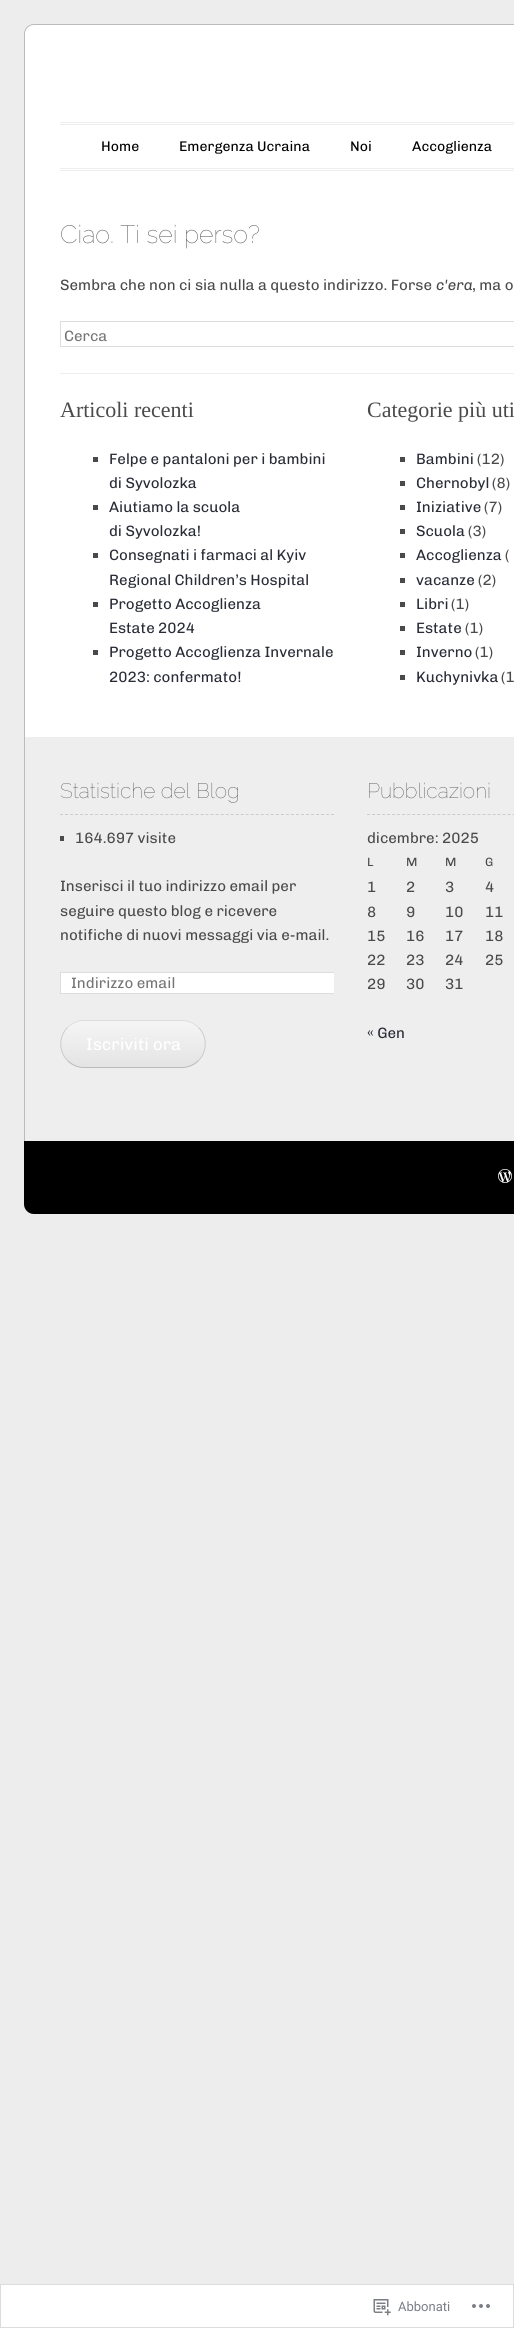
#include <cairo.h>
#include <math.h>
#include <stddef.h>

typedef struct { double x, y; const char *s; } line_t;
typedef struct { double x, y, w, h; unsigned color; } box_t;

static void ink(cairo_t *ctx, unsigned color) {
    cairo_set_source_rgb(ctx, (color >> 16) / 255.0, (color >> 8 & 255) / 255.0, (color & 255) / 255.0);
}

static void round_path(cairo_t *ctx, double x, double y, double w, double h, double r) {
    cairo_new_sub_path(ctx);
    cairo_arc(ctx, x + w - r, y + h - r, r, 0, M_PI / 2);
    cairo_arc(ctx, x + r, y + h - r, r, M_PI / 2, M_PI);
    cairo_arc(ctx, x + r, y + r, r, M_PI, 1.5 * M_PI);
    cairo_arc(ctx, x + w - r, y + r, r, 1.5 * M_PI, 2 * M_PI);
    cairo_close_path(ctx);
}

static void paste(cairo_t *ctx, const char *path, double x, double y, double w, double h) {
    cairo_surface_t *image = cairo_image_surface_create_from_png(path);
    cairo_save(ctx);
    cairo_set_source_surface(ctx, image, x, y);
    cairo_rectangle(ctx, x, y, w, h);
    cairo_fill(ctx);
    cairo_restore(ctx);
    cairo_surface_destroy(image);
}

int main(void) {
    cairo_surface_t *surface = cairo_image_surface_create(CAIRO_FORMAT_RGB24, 514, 2328);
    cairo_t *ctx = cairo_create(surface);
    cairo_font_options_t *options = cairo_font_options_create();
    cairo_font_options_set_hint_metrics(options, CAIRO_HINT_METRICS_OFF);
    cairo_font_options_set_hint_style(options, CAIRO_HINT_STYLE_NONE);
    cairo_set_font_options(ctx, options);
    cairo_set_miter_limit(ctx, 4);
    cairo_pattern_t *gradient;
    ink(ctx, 0xEDEDED);
    cairo_paint(ctx);
    ink(ctx, 0xFFFFFF);
    round_path(ctx, 24.5, 24.5, 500, 1189, 9.5);
    cairo_fill_preserve(ctx);
    ink(ctx, 0xBBBBBB);
    cairo_set_line_width(ctx, 1);
    cairo_stroke(ctx);
    {
        static const box_t items[] = {
            {60, 122, 454, 1, 0xEEEEEE},
            {60, 124, 454, 1, 0xEEEEEE},
            {60, 168, 454, 1, 0xEEEEEE},
            {60, 170, 454, 1, 0xEEEEEE},
        };
        for (size_t i = 0; i < sizeof items / sizeof *items; i++) {
            ink(ctx, items[i].color);
            cairo_rectangle(ctx, items[i].x, items[i].y, items[i].w, items[i].h);
            cairo_fill(ctx);
        }
    }
    cairo_select_font_face(ctx, "Chivo", CAIRO_FONT_SLANT_NORMAL, CAIRO_FONT_WEIGHT_NORMAL);
    cairo_set_font_size(ctx, 14);
    ink(ctx, 0x000000);
    {
        static const line_t items[] = {
            {101, 151, "Home"},
            {179, 151, "Emergenza Ucraina"},
            {350, 151, "Noi"},
            {412, 151, "Accoglienza"},
        };
        for (size_t i = 0; i < sizeof items / sizeof *items; i++) {
            cairo_move_to(ctx, items[i].x, items[i].y);
            cairo_show_text(ctx, items[i].s);
        }
    }
    ink(ctx, 0xEEEEEE);
    cairo_rectangle(ctx, 25, 737, 489, 404);
    cairo_fill(ctx);
    cairo_select_font_face(ctx, "Raleway Thin", CAIRO_FONT_SLANT_NORMAL, CAIRO_FONT_WEIGHT_NORMAL);
    cairo_set_font_size(ctx, 25);
    ink(ctx, 0x4A4A4A);
    cairo_move_to(ctx, 60, 243);
    cairo_show_text(ctx, "Ciao. Ti sei perso?");
    cairo_select_font_face(ctx, "Chivo", CAIRO_FONT_SLANT_NORMAL, CAIRO_FONT_WEIGHT_NORMAL);
    cairo_set_font_size(ctx, 15);
    cairo_move_to(ctx, 60, 290);
    cairo_show_text(ctx, "Sembra che non ci sia nulla a questo indirizzo. Forse");
    cairo_select_font_face(ctx, "Chivo", CAIRO_FONT_SLANT_ITALIC, CAIRO_FONT_WEIGHT_NORMAL);
    cairo_move_to(ctx, 436, 290);
    cairo_show_text(ctx, "c'era");
    cairo_select_font_face(ctx, "Chivo", CAIRO_FONT_SLANT_NORMAL, CAIRO_FONT_WEIGHT_NORMAL);
    cairo_move_to(ctx, 472, 290);
    cairo_show_text(ctx, ", ma o");
    ink(ctx, 0xEEEEEE);
    cairo_rectangle(ctx, 60, 373, 454, 1);
    cairo_fill(ctx);
    cairo_rectangle(ctx, 60.5, 321.5, 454, 25);
    ink(ctx, 0xDDDDDD);
    cairo_stroke(ctx);
    ink(ctx, 0x757575);
    cairo_move_to(ctx, 64, 341);
    cairo_show_text(ctx, "Cerca");
    cairo_select_font_face(ctx, "Liberation Serif", CAIRO_FONT_SLANT_NORMAL, CAIRO_FONT_WEIGHT_NORMAL);
    cairo_set_font_size(ctx, 22);
    ink(ctx, 0x4A4A4A);
    cairo_move_to(ctx, 60, 417);
    cairo_show_text(ctx, "Articoli recenti");
    cairo_rectangle(ctx, 93, 457, 5, 5);
    cairo_fill(ctx);
    cairo_select_font_face(ctx, "Chivo", CAIRO_FONT_SLANT_NORMAL, CAIRO_FONT_WEIGHT_NORMAL);
    cairo_set_font_size(ctx, 15);
    ink(ctx, 0x292C37);
    cairo_move_to(ctx, 109, 464);
    cairo_show_text(ctx, "Felpe e pantaloni per i bambini");
    cairo_move_to(ctx, 109, 488);
    cairo_show_text(ctx, "di Syvolozka");
    ink(ctx, 0x4A4A4A);
    cairo_rectangle(ctx, 93, 505, 5, 5);
    cairo_fill(ctx);
    ink(ctx, 0x292C37);
    cairo_move_to(ctx, 109, 512);
    cairo_show_text(ctx, "Aiutiamo la scuola");
    cairo_move_to(ctx, 109, 536);
    cairo_show_text(ctx, "di Syvolozka!");
    ink(ctx, 0x4A4A4A);
    cairo_rectangle(ctx, 93, 553, 5, 5);
    cairo_fill(ctx);
    ink(ctx, 0x292C37);
    cairo_move_to(ctx, 109, 560);
    cairo_show_text(ctx, "Consegnati i farmaci al Kyiv");
    cairo_move_to(ctx, 109, 585);
    cairo_show_text(ctx, "Regional Children’s Hospital");
    ink(ctx, 0x4A4A4A);
    cairo_rectangle(ctx, 93, 602, 5, 5);
    cairo_fill(ctx);
    ink(ctx, 0x292C37);
    cairo_move_to(ctx, 109, 609);
    cairo_show_text(ctx, "Progetto Accoglienza");
    cairo_move_to(ctx, 109, 633);
    cairo_show_text(ctx, "Estate 2024");
    ink(ctx, 0x4A4A4A);
    cairo_rectangle(ctx, 93, 650, 5, 5);
    cairo_fill(ctx);
    ink(ctx, 0x292C37);
    cairo_move_to(ctx, 109, 657);
    cairo_show_text(ctx, "Progetto Accoglienza Invernale");
    cairo_move_to(ctx, 109, 682);
    cairo_show_text(ctx, "2023: confermato!");
    cairo_select_font_face(ctx, "Liberation Serif", CAIRO_FONT_SLANT_NORMAL, CAIRO_FONT_WEIGHT_NORMAL);
    cairo_set_font_size(ctx, 22);
    ink(ctx, 0x4A4A4A);
    cairo_move_to(ctx, 367, 417);
    cairo_show_text(ctx, "Categorie più uti");
    cairo_rectangle(ctx, 400, 457, 5, 5);
    cairo_fill(ctx);
    cairo_select_font_face(ctx, "Chivo", CAIRO_FONT_SLANT_NORMAL, CAIRO_FONT_WEIGHT_NORMAL);
    cairo_set_font_size(ctx, 15);
    ink(ctx, 0x292C37);
    cairo_move_to(ctx, 416, 464);
    cairo_show_text(ctx, "Bambini");
    ink(ctx, 0x4A4A4A);
    cairo_move_to(ctx, 477, 464);
    cairo_show_text(ctx, "(12)");
    cairo_rectangle(ctx, 400, 481, 5, 5);
    cairo_fill(ctx);
    ink(ctx, 0x292C37);
    cairo_move_to(ctx, 416, 488);
    cairo_show_text(ctx, "Chernobyl");
    ink(ctx, 0x4A4A4A);
    cairo_move_to(ctx, 492, 488);
    cairo_show_text(ctx, "(8)");
    cairo_rectangle(ctx, 400, 505, 5, 5);
    cairo_fill(ctx);
    ink(ctx, 0x292C37);
    cairo_move_to(ctx, 416, 512);
    cairo_show_text(ctx, "Iniziative");
    ink(ctx, 0x4A4A4A);
    cairo_move_to(ctx, 484, 512);
    cairo_show_text(ctx, "(7)");
    cairo_rectangle(ctx, 400, 529, 5, 5);
    cairo_fill(ctx);
    ink(ctx, 0x292C37);
    cairo_move_to(ctx, 416, 536);
    cairo_show_text(ctx, "Scuola");
    ink(ctx, 0x4A4A4A);
    cairo_move_to(ctx, 468, 536);
    cairo_show_text(ctx, "(3)");
    cairo_rectangle(ctx, 400, 553, 5, 5);
    cairo_fill(ctx);
    ink(ctx, 0x292C37);
    cairo_move_to(ctx, 416, 560);
    cairo_show_text(ctx, "Accoglienza");
    ink(ctx, 0x4A4A4A);
    cairo_move_to(ctx, 505, 560);
    cairo_show_text(ctx, "(");
    cairo_rectangle(ctx, 400, 578, 5, 5);
    cairo_fill(ctx);
    ink(ctx, 0x292C37);
    cairo_move_to(ctx, 416, 585);
    cairo_show_text(ctx, "vacanze");
    ink(ctx, 0x4A4A4A);
    cairo_move_to(ctx, 478, 585);
    cairo_show_text(ctx, "(2)");
    cairo_rectangle(ctx, 400, 602, 5, 5);
    cairo_fill(ctx);
    ink(ctx, 0x292C37);
    cairo_move_to(ctx, 416, 609);
    cairo_show_text(ctx, "Libri");
    ink(ctx, 0x4A4A4A);
    cairo_move_to(ctx, 451, 609);
    cairo_show_text(ctx, "(1)");
    cairo_rectangle(ctx, 400, 626, 5, 5);
    cairo_fill(ctx);
    ink(ctx, 0x292C37);
    cairo_move_to(ctx, 416, 633);
    cairo_show_text(ctx, "Estate");
    ink(ctx, 0x4A4A4A);
    cairo_move_to(ctx, 465, 633);
    cairo_show_text(ctx, "(1)");
    cairo_rectangle(ctx, 400, 650, 5, 5);
    cairo_fill(ctx);
    ink(ctx, 0x292C37);
    cairo_move_to(ctx, 416, 657);
    cairo_show_text(ctx, "Inverno");
    ink(ctx, 0x4A4A4A);
    cairo_move_to(ctx, 475, 657);
    cairo_show_text(ctx, "(1)");
    cairo_rectangle(ctx, 400, 675, 5, 5);
    cairo_fill(ctx);
    ink(ctx, 0x292C37);
    cairo_move_to(ctx, 416, 682);
    cairo_show_text(ctx, "Kuchynivka");
    ink(ctx, 0x4A4A4A);
    cairo_move_to(ctx, 501, 682);
    cairo_show_text(ctx, "(1");
    cairo_new_path(ctx);
    cairo_move_to(ctx, 60, 814.5);
    cairo_line_to(ctx, 334, 814.5);
    ink(ctx, 0xCCCCCC);
    cairo_set_dash(ctx, (double[]){3, 2.02}, 2, 0);
    cairo_stroke(ctx);
    cairo_select_font_face(ctx, "Raleway Thin", CAIRO_FONT_SLANT_NORMAL, CAIRO_FONT_WEIGHT_NORMAL);
    cairo_set_font_size(ctx, 21);
    ink(ctx, 0x4A4A4A);
    cairo_move_to(ctx, 60, 798);
    cairo_show_text(ctx, "Statistiche del Blog");
    cairo_rectangle(ctx, 60, 836, 4, 5);
    cairo_fill(ctx);
    cairo_select_font_face(ctx, "Chivo", CAIRO_FONT_SLANT_NORMAL, CAIRO_FONT_WEIGHT_NORMAL);
    cairo_set_font_size(ctx, 15);
    {
        static const line_t items[] = {
            {75, 843, "164.697 visite"},
            {60, 891, "Inserisci il tuo indirizzo email per"},
            {60, 916, "seguire questo blog e ricevere"},
            {60, 940, "notifiche di nuovi messaggi via e-mail."},
        };
        for (size_t i = 0; i < sizeof items / sizeof *items; i++) {
            cairo_move_to(ctx, items[i].x, items[i].y);
            cairo_show_text(ctx, items[i].s);
        }
    }
    ink(ctx, 0xFFFFFF);
    cairo_rectangle(ctx, 61, 973, 273, 20);
    cairo_fill(ctx);
    cairo_save(ctx);
    cairo_rectangle(ctx, 60, 874, 274, 218);
    cairo_clip(ctx);
    cairo_rectangle(ctx, 60.5, 972.5, 282, 21);
    ink(ctx, 0xDDDDDD);
    cairo_set_dash(ctx, NULL, 0, 0);
    cairo_stroke(ctx);
    cairo_restore(ctx);
    ink(ctx, 0x757575);
    cairo_move_to(ctx, 71, 988);
    cairo_show_text(ctx, "Indirizzo email");
    cairo_save(ctx);
    round_path(ctx, 60, 1020, 146, 48, 24);
    cairo_clip(ctx);
    gradient = cairo_pattern_create_linear(133, 1021, 133, 1067);
    cairo_pattern_add_color_stop_rgba(gradient, 0, 0.961, 0.961, 0.961, 1);
    cairo_pattern_add_color_stop_rgba(gradient, 1, 0.894, 0.894, 0.894, 1);
    cairo_set_source(ctx, gradient);
    cairo_pattern_destroy(gradient);
    cairo_rectangle(ctx, 60, 1021, 146, 46);
    cairo_fill(ctx);
    cairo_restore(ctx);
    cairo_new_path(ctx);
    cairo_move_to(ctx, 67.5, 1027.5);
    cairo_curve_to(ctx, 72, 1023, 78, 1020.5, 84, 1020.5);
    cairo_line_to(ctx, 182, 1020.5);
    cairo_curve_to(ctx, 188, 1020.5, 194, 1023, 198.5, 1027.5);
    ink(ctx, 0xDDDDDD);
    cairo_set_dash(ctx, NULL, 0, 0);
    cairo_stroke(ctx);
    cairo_new_path(ctx);
    cairo_move_to(ctx, 198.5, 1027.5);
    cairo_curve_to(ctx, 207.5, 1036.5, 207.5, 1051.5, 198.5, 1060.5);
    ink(ctx, 0xCCCCCC);
    cairo_stroke(ctx);
    cairo_new_path(ctx);
    cairo_move_to(ctx, 198.5, 1060.5);
    cairo_curve_to(ctx, 194, 1065, 188, 1067.5, 182, 1067.5);
    cairo_line_to(ctx, 84, 1067.5);
    cairo_curve_to(ctx, 78, 1067.5, 72, 1065, 67.5, 1060.5);
    ink(ctx, 0xBBBBBB);
    cairo_stroke(ctx);
    cairo_new_path(ctx);
    cairo_move_to(ctx, 67.5, 1060.5);
    cairo_curve_to(ctx, 58.5, 1051.5, 58.5, 1036.5, 67.5, 1027.5);
    ink(ctx, 0xCCCCCC);
    cairo_stroke(ctx);
    cairo_set_font_size(ctx, 17);
    ink(ctx, 0xFFFFFF);
    cairo_move_to(ctx, 86, 1050);
    cairo_show_text(ctx, "Iscriviti ora");
    cairo_new_path(ctx);
    cairo_move_to(ctx, 367, 814.5);
    cairo_line_to(ctx, 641, 814.5);
    ink(ctx, 0xCCCCCC);
    cairo_set_dash(ctx, (double[]){3, 2.02}, 2, 0);
    cairo_stroke(ctx);
    cairo_select_font_face(ctx, "Raleway Thin", CAIRO_FONT_SLANT_NORMAL, CAIRO_FONT_WEIGHT_NORMAL);
    cairo_set_font_size(ctx, 21);
    ink(ctx, 0x4A4A4A);
    cairo_move_to(ctx, 367, 798);
    cairo_show_text(ctx, "Pubblicazioni");
    cairo_select_font_face(ctx, "Chivo", CAIRO_FONT_SLANT_NORMAL, CAIRO_FONT_WEIGHT_NORMAL);
    cairo_set_font_size(ctx, 15);
    cairo_move_to(ctx, 367, 843);
    cairo_show_text(ctx, "dicembre: 2025");
    cairo_set_font_size(ctx, 12);
    {
        static const line_t items[] = {
            {367, 866, "L"},
            {406, 866, "M"},
            {445, 866, "M"},
            {485, 866, "G"},
        };
        for (size_t i = 0; i < sizeof items / sizeof *items; i++) {
            cairo_move_to(ctx, items[i].x, items[i].y);
            cairo_show_text(ctx, items[i].s);
        }
    }
    cairo_set_font_size(ctx, 15);
    {
        static const line_t items[] = {
            {367, 892, "1"},
            {406, 892, "2"},
            {445, 892, "3"},
            {485, 892, "4"},
            {367, 917, "8"},
            {406, 917, "9"},
            {445, 917, "10"},
            {485, 917, "11"},
            {367, 941, "15"},
            {406, 941, "16"},
            {445, 941, "17"},
            {485, 941, "18"},
            {367, 965, "22"},
            {406, 965, "23"},
            {445, 965, "24"},
            {485, 965, "25"},
            {367, 989, "29"},
            {406, 989, "30"},
            {445, 989, "31"},
        };
        for (size_t i = 0; i < sizeof items / sizeof *items; i++) {
            cairo_move_to(ctx, items[i].x, items[i].y);
            cairo_show_text(ctx, items[i].s);
        }
    }
    ink(ctx, 0x292C37);
    cairo_move_to(ctx, 367, 1038);
    cairo_show_text(ctx, "« Gen");
    ink(ctx, 0x000000);
    cairo_new_path(ctx);
    cairo_move_to(ctx, 24, 1141);
    cairo_line_to(ctx, 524, 1141);
    cairo_line_to(ctx, 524, 1204);
    cairo_curve_to(ctx, 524, 1209.5, 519.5, 1214, 514, 1214);
    cairo_line_to(ctx, 34, 1214);
    cairo_curve_to(ctx, 28.5, 1214, 24, 1209.5, 24, 1204);
    cairo_close_path(ctx);
    cairo_fill(ctx);
    paste(ctx, "media/1.png", 498, 1169, 14, 14);
    ink(ctx, 0xFFFFFF);
    cairo_rectangle(ctx, 0.5, 2284.5, 513, 43);
    cairo_fill_preserve(ctx);
    ink(ctx, 0xDCDCDE);
    cairo_set_dash(ctx, NULL, 0, 0);
    cairo_stroke(ctx);
    paste(ctx, "media/2.png", 373, 2299, 18, 17);
    cairo_select_font_face(ctx, "Roboto", CAIRO_FONT_SLANT_NORMAL, CAIRO_FONT_WEIGHT_NORMAL);
    cairo_set_font_size(ctx, 13);
    ink(ctx, 0x7A7E84);
    cairo_move_to(ctx, 398, 2311);
    cairo_show_text(ctx, "Abbonati");
    paste(ctx, "media/3.png", 472, 2304, 18, 4);
    cairo_surface_write_to_png(surface, "image.png");
    cairo_font_options_destroy(options);
    cairo_destroy(ctx);
    cairo_surface_destroy(surface);
    return 0;
}
